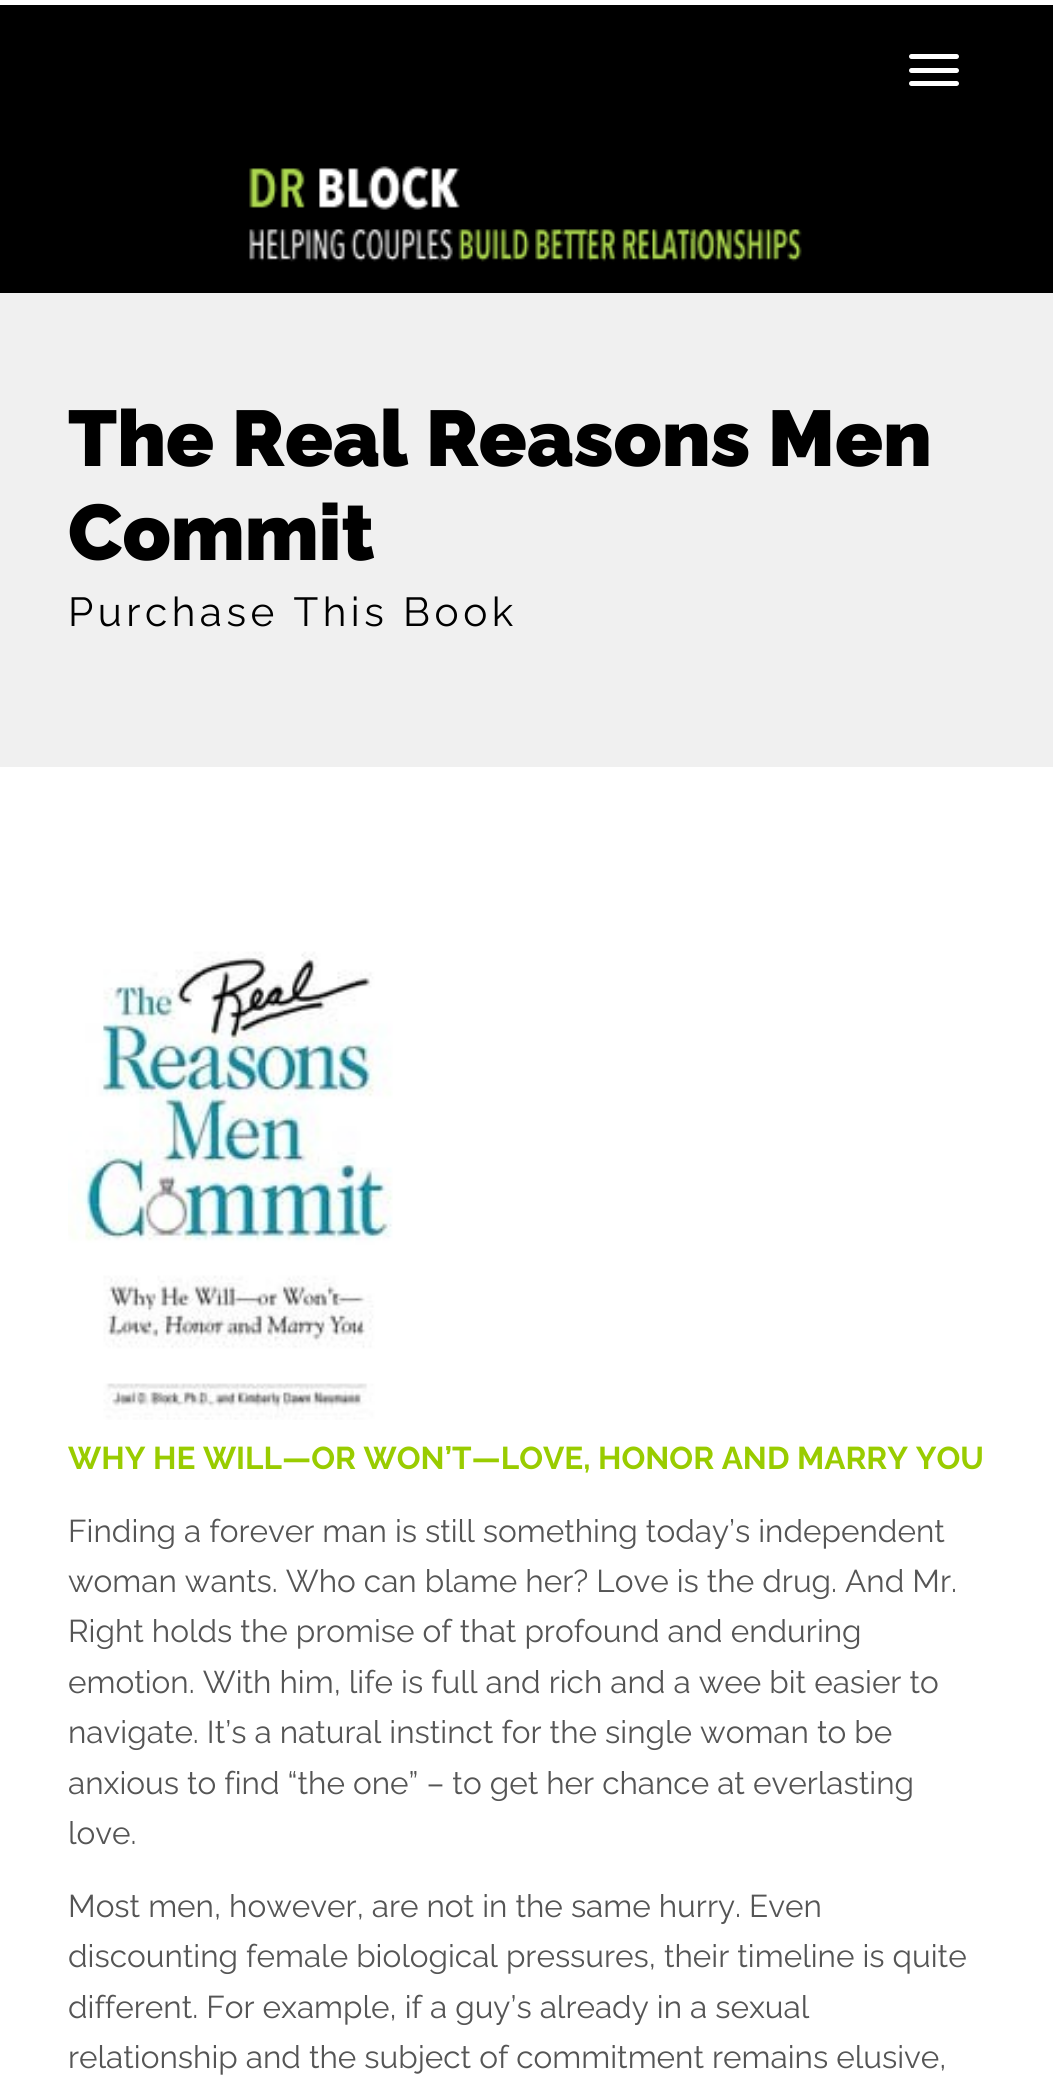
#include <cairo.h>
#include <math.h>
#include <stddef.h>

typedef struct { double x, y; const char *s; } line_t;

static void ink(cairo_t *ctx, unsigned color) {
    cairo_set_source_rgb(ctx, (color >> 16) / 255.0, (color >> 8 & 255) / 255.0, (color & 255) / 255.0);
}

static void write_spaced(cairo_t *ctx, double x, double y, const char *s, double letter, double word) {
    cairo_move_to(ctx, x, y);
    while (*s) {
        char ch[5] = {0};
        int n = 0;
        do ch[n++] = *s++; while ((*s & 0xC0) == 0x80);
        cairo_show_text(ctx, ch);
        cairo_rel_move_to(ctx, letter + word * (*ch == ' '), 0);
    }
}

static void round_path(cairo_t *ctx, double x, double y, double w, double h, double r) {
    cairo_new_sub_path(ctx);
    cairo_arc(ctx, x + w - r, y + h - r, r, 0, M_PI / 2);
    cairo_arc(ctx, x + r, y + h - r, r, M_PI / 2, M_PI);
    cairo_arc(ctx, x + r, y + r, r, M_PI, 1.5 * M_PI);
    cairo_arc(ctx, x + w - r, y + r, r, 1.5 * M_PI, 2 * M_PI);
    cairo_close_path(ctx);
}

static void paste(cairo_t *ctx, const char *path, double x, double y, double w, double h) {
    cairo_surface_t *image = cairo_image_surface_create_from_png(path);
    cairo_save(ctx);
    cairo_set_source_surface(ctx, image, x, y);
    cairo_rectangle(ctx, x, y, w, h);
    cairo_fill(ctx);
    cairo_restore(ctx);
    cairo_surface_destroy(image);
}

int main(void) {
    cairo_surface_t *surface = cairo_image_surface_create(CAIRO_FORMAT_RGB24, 1053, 2090);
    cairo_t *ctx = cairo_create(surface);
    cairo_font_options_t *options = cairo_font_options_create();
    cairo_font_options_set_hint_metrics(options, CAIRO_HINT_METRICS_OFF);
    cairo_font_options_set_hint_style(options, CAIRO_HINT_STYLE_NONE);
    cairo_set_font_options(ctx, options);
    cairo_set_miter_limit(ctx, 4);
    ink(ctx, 0xFFFFFF);
    cairo_paint(ctx);
    ink(ctx, 0x000000);
    cairo_rectangle(ctx, 0, 5, 1053, 288);
    cairo_fill(ctx);
    ink(ctx, 0xFFFFFF);
    round_path(ctx, 909, 54, 50, 5, 2.5);
    cairo_fill(ctx);
    round_path(ctx, 909, 68, 50, 5, 2.5);
    cairo_fill(ctx);
    round_path(ctx, 909, 81, 50, 5, 2.5);
    cairo_fill(ctx);
    paste(ctx, "media/1.png", 249, 166, 553, 96);
    ink(ctx, 0xF0F0F0);
    cairo_rectangle(ctx, 0, 293, 1053, 474);
    cairo_fill(ctx);
    cairo_select_font_face(ctx, "Raleway Black", CAIRO_FONT_SLANT_NORMAL, CAIRO_FONT_WEIGHT_NORMAL);
    cairo_set_font_size(ctx, 78.75);
    ink(ctx, 0x000000);
    cairo_move_to(ctx, 68, 466);
    cairo_show_text(ctx, "The Real Reasons Men");
    cairo_move_to(ctx, 68, 560);
    cairo_show_text(ctx, "Commit");
    cairo_select_font_face(ctx, "Raleway", CAIRO_FONT_SLANT_NORMAL, CAIRO_FONT_WEIGHT_NORMAL);
    cairo_set_font_size(ctx, 40.5);
    write_spaced(ctx, 68, 626, "Purchase This Book", 4.5, 0);
    paste(ctx, "media/2.png", 68, 951, 325, 469);
    cairo_select_font_face(ctx, "Raleway", CAIRO_FONT_SLANT_NORMAL, CAIRO_FONT_WEIGHT_BOLD);
    cairo_set_font_size(ctx, 31.5);
    ink(ctx, 0x99CC00);
    cairo_move_to(ctx, 68, 1469);
    cairo_show_text(ctx, "WHY HE WILL—OR WON’T—LOVE, HONOR AND MARRY YOU");
    cairo_select_font_face(ctx, "Raleway", CAIRO_FONT_SLANT_NORMAL, CAIRO_FONT_WEIGHT_NORMAL);
    ink(ctx, 0x555555);
    {
        static const line_t items[] = {
            {68, 1542, "Finding a forever man is still something today’s independent"},
            {68, 1592, "woman wants. Who can blame her? Love is the drug. And Mr."},
            {68, 1642, "Right holds the promise of that profound and enduring"},
            {68, 1693, "emotion. With him, life is full and rich and a wee bit easier to"},
            {68, 1743, "navigate. It’s a natural instinct for the single woman to be"},
            {68, 1794, "anxious to find “the one” – to get her chance at everlasting"},
            {68, 1844, "love."},
            {68, 1917, "Most men, however, are not in the same hurry. Even"},
            {68, 1967, "discounting female biological pressures, their timeline is quite"},
            {68, 2018, "different. For example, if a guy’s already in a sexual"},
            {68, 2068, "relationship and the subject of commitment remains elusive,"},
        };
        for (size_t i = 0; i < sizeof items / sizeof *items; i++) {
            cairo_move_to(ctx, items[i].x, items[i].y);
            cairo_show_text(ctx, items[i].s);
        }
    }
    cairo_surface_write_to_png(surface, "image.png");
    cairo_font_options_destroy(options);
    cairo_destroy(ctx);
    cairo_surface_destroy(surface);
    return 0;
}
